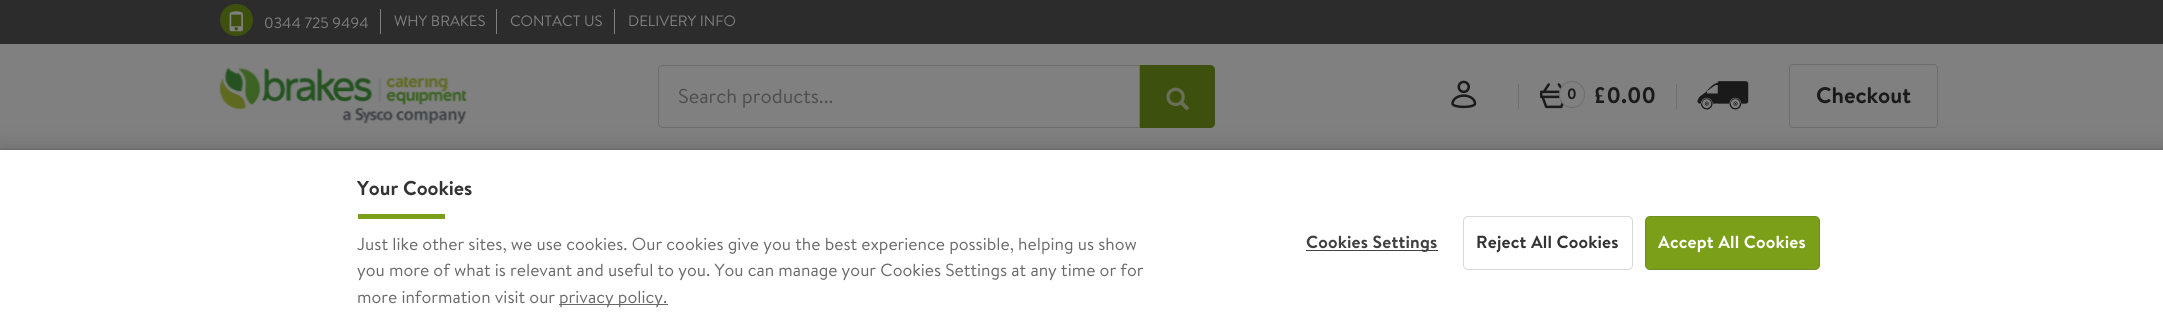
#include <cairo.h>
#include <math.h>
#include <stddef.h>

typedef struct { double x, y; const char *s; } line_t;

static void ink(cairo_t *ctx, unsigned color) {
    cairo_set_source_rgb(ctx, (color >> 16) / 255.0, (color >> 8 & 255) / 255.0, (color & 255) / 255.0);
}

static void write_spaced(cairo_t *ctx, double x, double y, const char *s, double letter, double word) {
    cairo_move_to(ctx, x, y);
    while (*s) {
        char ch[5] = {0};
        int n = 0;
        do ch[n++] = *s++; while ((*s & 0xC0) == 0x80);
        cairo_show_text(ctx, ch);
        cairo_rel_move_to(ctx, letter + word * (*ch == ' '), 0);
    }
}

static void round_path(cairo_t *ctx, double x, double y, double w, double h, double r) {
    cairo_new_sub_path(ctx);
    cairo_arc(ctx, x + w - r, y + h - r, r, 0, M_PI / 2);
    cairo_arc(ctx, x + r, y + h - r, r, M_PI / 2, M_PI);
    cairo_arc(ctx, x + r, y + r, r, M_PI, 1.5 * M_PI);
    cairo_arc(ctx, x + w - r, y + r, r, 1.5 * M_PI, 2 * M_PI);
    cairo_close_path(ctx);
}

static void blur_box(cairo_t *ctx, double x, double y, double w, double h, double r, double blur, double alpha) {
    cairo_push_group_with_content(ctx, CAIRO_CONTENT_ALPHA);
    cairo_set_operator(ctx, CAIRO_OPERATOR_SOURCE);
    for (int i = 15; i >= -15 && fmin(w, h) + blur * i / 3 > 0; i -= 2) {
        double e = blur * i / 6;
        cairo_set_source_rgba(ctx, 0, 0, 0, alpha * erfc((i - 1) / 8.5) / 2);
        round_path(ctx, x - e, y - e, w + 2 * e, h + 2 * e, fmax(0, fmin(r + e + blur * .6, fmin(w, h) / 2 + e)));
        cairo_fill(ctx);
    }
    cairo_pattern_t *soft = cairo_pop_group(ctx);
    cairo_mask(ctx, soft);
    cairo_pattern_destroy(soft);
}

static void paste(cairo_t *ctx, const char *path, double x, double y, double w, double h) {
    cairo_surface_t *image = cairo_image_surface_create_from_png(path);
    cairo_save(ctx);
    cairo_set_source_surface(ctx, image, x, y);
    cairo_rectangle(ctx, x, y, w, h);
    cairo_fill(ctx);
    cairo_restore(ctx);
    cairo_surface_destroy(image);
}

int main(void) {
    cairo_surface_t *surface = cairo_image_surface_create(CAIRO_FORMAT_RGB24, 2163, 335);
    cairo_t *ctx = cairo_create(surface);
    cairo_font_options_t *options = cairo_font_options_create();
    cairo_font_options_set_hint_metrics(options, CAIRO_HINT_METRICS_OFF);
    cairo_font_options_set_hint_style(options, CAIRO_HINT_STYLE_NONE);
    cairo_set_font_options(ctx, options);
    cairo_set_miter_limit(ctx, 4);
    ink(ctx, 0x808080);
    cairo_paint(ctx);
    ink(ctx, 0x2C2C2D);
    cairo_rectangle(ctx, 0, 0, 2163, 44);
    cairo_fill(ctx);
    ink(ctx, 0x3E500D);
    round_path(ctx, 220, 4, 33, 32, 16);
    cairo_fill(ctx);
    paste(ctx, "media/1.png", 229, 11, 14, 21);
    cairo_select_font_face(ctx, "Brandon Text", CAIRO_FONT_SLANT_NORMAL, CAIRO_FONT_WEIGHT_NORMAL);
    cairo_set_font_size(ctx, 15);
    ink(ctx, 0x808080);
    cairo_move_to(ctx, 264, 28);
    cairo_show_text(ctx, "0344 725 9494");
    cairo_rectangle(ctx, 380, 9, 1, 25);
    cairo_fill(ctx);
    cairo_move_to(ctx, 394, 26);
    cairo_show_text(ctx, "WHY BRAKES");
    cairo_rectangle(ctx, 496, 9, 1, 25);
    cairo_fill(ctx);
    cairo_move_to(ctx, 510, 26);
    cairo_show_text(ctx, "CONTACT US");
    cairo_rectangle(ctx, 614, 9, 1, 25);
    cairo_fill(ctx);
    cairo_move_to(ctx, 628, 26);
    cairo_show_text(ctx, "DELIVERY INFO");
    paste(ctx, "media/2.png", 219, 67, 248, 57);
    cairo_new_path(ctx);
    cairo_move_to(ctx, 663, 65.5);
    cairo_line_to(ctx, 1139.5, 65.5);
    cairo_line_to(ctx, 1139.5, 127.5);
    cairo_line_to(ctx, 663, 127.5);
    cairo_curve_to(ctx, 660.5, 127.5, 658.5, 125.5, 658.5, 123);
    cairo_line_to(ctx, 658.5, 70);
    cairo_curve_to(ctx, 658.5, 67.5, 660.5, 65.5, 663, 65.5);
    cairo_close_path(ctx);
    ink(ctx, 0x6D6D6D);
    cairo_set_line_width(ctx, 1);
    cairo_stroke(ctx);
    cairo_set_font_size(ctx, 20);
    ink(ctx, 0x4D4D4D);
    cairo_move_to(ctx, 678, 103);
    cairo_show_text(ctx, "Search products...");
    ink(ctx, 0x3E500D);
    cairo_new_path(ctx);
    cairo_move_to(ctx, 1140, 65);
    cairo_line_to(ctx, 1210, 65);
    cairo_curve_to(ctx, 1213, 65, 1215, 67, 1215, 70);
    cairo_line_to(ctx, 1215, 123);
    cairo_curve_to(ctx, 1215, 126, 1213, 128, 1210, 128);
    cairo_line_to(ctx, 1140, 128);
    cairo_close_path(ctx);
    cairo_fill(ctx);
    paste(ctx, "media/3.png", 1166, 87, 23, 24);
    paste(ctx, "media/4.png", 1451, 80, 26, 29);
    ink(ctx, 0x6D6D6D);
    cairo_rectangle(ctx, 1518, 84, 1, 25);
    cairo_fill(ctx);
    paste(ctx, "media/5.png", 1540, 83, 24, 26);
    ink(ctx, 0x808080);
    round_path(ctx, 1559.5, 81.5, 25, 26, 12.5);
    cairo_fill_preserve(ctx);
    ink(ctx, 0x6D6D6D);
    cairo_stroke(ctx);
    cairo_select_font_face(ctx, "Brandon Text", CAIRO_FONT_SLANT_NORMAL, CAIRO_FONT_WEIGHT_BOLD);
    cairo_set_font_size(ctx, 15);
    ink(ctx, 0x1A1A1A);
    cairo_move_to(ctx, 1567, 99);
    cairo_show_text(ctx, "0");
    cairo_set_font_size(ctx, 22.5);
    cairo_move_to(ctx, 1593, 103);
    cairo_show_text(ctx, "£0.00");
    ink(ctx, 0x6D6D6D);
    cairo_rectangle(ctx, 1676, 84, 1, 25);
    cairo_fill(ctx);
    paste(ctx, "media/6.png", 1697, 81, 52, 29);
    round_path(ctx, 1789.5, 64.5, 148, 63, 3.5);
    cairo_stroke(ctx);
    ink(ctx, 0x1A1A1A);
    cairo_move_to(ctx, 1816, 103);
    cairo_show_text(ctx, "Checkout");
    ink(ctx, 0x797979);
    cairo_rectangle(ctx, 0, 148, 2163, 2);
    cairo_fill(ctx);
    ink(ctx, 0x000000);
    blur_box(ctx, 0, 150, 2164, 185, 0, 11, 0.2);
    ink(ctx, 0xFFFFFF);
    cairo_rectangle(ctx, 0, 150, 2163, 185);
    cairo_fill(ctx);
    cairo_set_font_size(ctx, 20);
    ink(ctx, 0x333333);
    cairo_move_to(ctx, 357, 195);
    cairo_show_text(ctx, "Your Cookies");
    ink(ctx, 0x7C9F19);
    cairo_rectangle(ctx, 358, 214, 87, 5);
    cairo_fill(ctx);
    cairo_select_font_face(ctx, "Brandon Text", CAIRO_FONT_SLANT_NORMAL, CAIRO_FONT_WEIGHT_NORMAL);
    cairo_set_font_size(ctx, 17.5);
    ink(ctx, 0x696969);
    {
        static const line_t items[] = {
            {357, 250, "Just like other sites, we use cookies. Our cookies give you the best experience possible, helping us show"},
            {357, 276, "you more of what is relevant and useful to you. You can manage your Cookies Settings at any time or for"},
            {357, 303, "more information visit our"},
        };
        for (size_t i = 0; i < sizeof items / sizeof *items; i++) {
            cairo_move_to(ctx, items[i].x, items[i].y);
            cairo_show_text(ctx, items[i].s);
        }
    }
    cairo_rectangle(ctx, 559, 304, 109, 1);
    cairo_fill(ctx);
    cairo_move_to(ctx, 559, 303);
    cairo_show_text(ctx, "privacy policy.");
    ink(ctx, 0x404040);
    cairo_rectangle(ctx, 1306, 250, 132, 1);
    cairo_fill(ctx);
    cairo_select_font_face(ctx, "Brandon Text", CAIRO_FONT_SLANT_NORMAL, CAIRO_FONT_WEIGHT_BOLD);
    write_spaced(ctx, 1306, 248, "Cookies Settings", 0.2, 0);
    round_path(ctx, 1463.5, 216.5, 169, 53, 4.5);
    ink(ctx, 0xD9D9D9);
    cairo_stroke(ctx);
    ink(ctx, 0x333333);
    write_spaced(ctx, 1476, 248, "Reject All Cookies", 0.2, 0);
    ink(ctx, 0x7C9F19);
    round_path(ctx, 1645.5, 216.5, 174, 53, 4.5);
    cairo_fill_preserve(ctx);
    ink(ctx, 0x708D23);
    cairo_stroke(ctx);
    ink(ctx, 0xFFFFFF);
    write_spaced(ctx, 1658, 248, "Accept All Cookies", 0.2, 0);
    cairo_surface_write_to_png(surface, "image.png");
    cairo_font_options_destroy(options);
    cairo_destroy(ctx);
    cairo_surface_destroy(surface);
    return 0;
}
